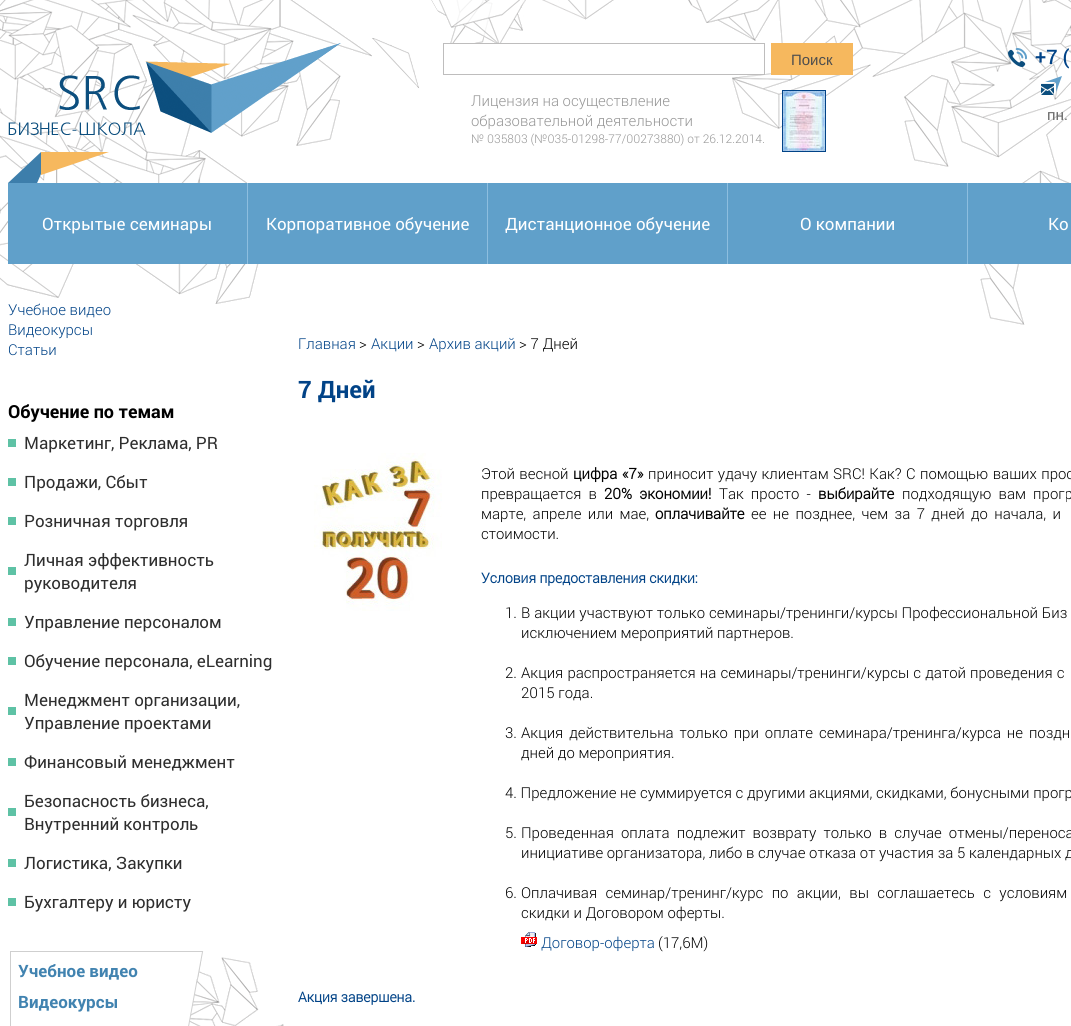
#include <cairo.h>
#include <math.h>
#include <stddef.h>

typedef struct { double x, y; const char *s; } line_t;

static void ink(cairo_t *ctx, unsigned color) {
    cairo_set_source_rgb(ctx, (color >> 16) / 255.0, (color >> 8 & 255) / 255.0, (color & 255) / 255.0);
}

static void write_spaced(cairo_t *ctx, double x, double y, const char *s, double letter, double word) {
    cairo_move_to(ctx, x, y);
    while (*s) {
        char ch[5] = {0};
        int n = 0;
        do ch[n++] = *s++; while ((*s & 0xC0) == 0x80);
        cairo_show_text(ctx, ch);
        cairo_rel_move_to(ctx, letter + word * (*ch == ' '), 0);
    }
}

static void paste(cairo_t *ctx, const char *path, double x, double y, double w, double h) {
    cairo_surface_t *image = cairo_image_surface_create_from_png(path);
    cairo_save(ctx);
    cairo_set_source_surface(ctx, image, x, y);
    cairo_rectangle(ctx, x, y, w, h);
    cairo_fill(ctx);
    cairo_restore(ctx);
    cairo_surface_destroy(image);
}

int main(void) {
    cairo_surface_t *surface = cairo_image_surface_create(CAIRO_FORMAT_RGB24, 1071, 1026);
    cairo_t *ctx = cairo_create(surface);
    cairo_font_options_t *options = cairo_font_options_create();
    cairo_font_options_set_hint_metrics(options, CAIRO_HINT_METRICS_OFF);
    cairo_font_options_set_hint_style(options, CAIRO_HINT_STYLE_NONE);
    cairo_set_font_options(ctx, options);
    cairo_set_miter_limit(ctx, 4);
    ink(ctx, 0xFFFFFF);
    cairo_paint(ctx);
    paste(ctx, "media/1.png", 0, 0, 493, 304);
    paste(ctx, "media/2.png", 372, 0, 699, 325);
    paste(ctx, "media/3.png", 8, 43, 333, 92);
    ink(ctx, 0xFFFFFF);
    cairo_rectangle(ctx, 448, 44, 53, 5);
    cairo_fill(ctx);
    cairo_rectangle(ctx, 443.5, 43.5, 321, 31);
    ink(ctx, 0xBEBDBD);
    cairo_set_line_width(ctx, 1);
    cairo_stroke(ctx);
    ink(ctx, 0xF6B85E);
    cairo_rectangle(ctx, 771, 43, 82, 32);
    cairo_fill(ctx);
    cairo_select_font_face(ctx, "Liberation Sans", CAIRO_FONT_SLANT_NORMAL, CAIRO_FONT_WEIGHT_NORMAL);
    cairo_set_font_size(ctx, 15);
    ink(ctx, 0x4E4E4E);
    cairo_move_to(ctx, 791, 65);
    cairo_show_text(ctx, "Поиск");
    cairo_select_font_face(ctx, "Roboto Light", CAIRO_FONT_SLANT_NORMAL, CAIRO_FONT_WEIGHT_NORMAL);
    ink(ctx, 0x979797);
    cairo_move_to(ctx, 471, 106);
    cairo_show_text(ctx, "Лицензия на осуществление");
    cairo_rectangle(ctx, 782.5, 90.5, 43, 61);
    ink(ctx, 0x014387);
    cairo_stroke(ctx);
    paste(ctx, "media/4.png", 783, 91, 42, 60);
    ink(ctx, 0x979797);
    cairo_move_to(ctx, 471, 126);
    cairo_show_text(ctx, "образовательной деятельности");
    cairo_set_font_size(ctx, 12);
    cairo_move_to(ctx, 471, 143);
    cairo_show_text(ctx, "№ 035803 (№035-01298-77/00273880) от 26.12.2014.");
    paste(ctx, "media/5.png", 1008, 48, 19, 19);
    cairo_select_font_face(ctx, "Roboto Medium", CAIRO_FONT_SLANT_NORMAL, CAIRO_FONT_WEIGHT_NORMAL);
    cairo_set_font_size(ctx, 20);
    ink(ctx, 0x014387);
    cairo_move_to(ctx, 1035, 64);
    cairo_show_text(ctx, "+7 (");
    paste(ctx, "media/6.png", 1041, 76, 21, 19);
    cairo_select_font_face(ctx, "Roboto", CAIRO_FONT_SLANT_NORMAL, CAIRO_FONT_WEIGHT_NORMAL);
    cairo_set_font_size(ctx, 15);
    ink(ctx, 0x6E6E6E);
    cairo_move_to(ctx, 1047, 120);
    cairo_show_text(ctx, "пн.");
    paste(ctx, "media/7.png", 8, 152, 101, 31);
    ink(ctx, 0x60A0CA);
    cairo_rectangle(ctx, 8, 183, 1063, 81);
    cairo_fill(ctx);
    ink(ctx, 0x8DBEDF);
    cairo_rectangle(ctx, 247, 183, 1, 81);
    cairo_fill(ctx);
    cairo_set_font_size(ctx, 17);
    ink(ctx, 0xFFFFFF);
    cairo_move_to(ctx, 42, 230);
    cairo_show_text(ctx, "Открытые семинары");
    ink(ctx, 0x8DBEDF);
    cairo_rectangle(ctx, 487, 183, 1, 81);
    cairo_fill(ctx);
    ink(ctx, 0xFFFFFF);
    cairo_move_to(ctx, 266, 230);
    cairo_show_text(ctx, "Корпоративное обучение");
    ink(ctx, 0x8DBEDF);
    cairo_rectangle(ctx, 727, 183, 1, 81);
    cairo_fill(ctx);
    ink(ctx, 0xFFFFFF);
    cairo_move_to(ctx, 505, 230);
    cairo_show_text(ctx, "Дистанционное обучение");
    ink(ctx, 0x8DBEDF);
    cairo_rectangle(ctx, 967, 183, 1, 81);
    cairo_fill(ctx);
    ink(ctx, 0xFFFFFF);
    cairo_move_to(ctx, 800, 230);
    cairo_show_text(ctx, "О компании");
    cairo_move_to(ctx, 1048, 230);
    cairo_show_text(ctx, "Ко");
    cairo_select_font_face(ctx, "Roboto Light", CAIRO_FONT_SLANT_NORMAL, CAIRO_FONT_WEIGHT_NORMAL);
    cairo_set_font_size(ctx, 15);
    ink(ctx, 0x014387);
    {
        static const line_t items[] = {
            {8, 315, "Учебное видео"},
            {8, 335, "Видеокурсы"},
            {8, 355, "Статьи"},
        };
        for (size_t i = 0; i < sizeof items / sizeof *items; i++) {
            cairo_move_to(ctx, items[i].x, items[i].y);
            cairo_show_text(ctx, items[i].s);
        }
    }
    cairo_select_font_face(ctx, "Roboto", CAIRO_FONT_SLANT_NORMAL, CAIRO_FONT_WEIGHT_BOLD);
    cairo_set_font_size(ctx, 18);
    ink(ctx, 0x000000);
    cairo_move_to(ctx, 8, 418);
    cairo_show_text(ctx, "Обучение по темам");
    ink(ctx, 0x5EC2A5);
    cairo_rectangle(ctx, 8, 439, 8, 8);
    cairo_fill(ctx);
    cairo_select_font_face(ctx, "Roboto", CAIRO_FONT_SLANT_NORMAL, CAIRO_FONT_WEIGHT_NORMAL);
    cairo_set_font_size(ctx, 17);
    ink(ctx, 0x2E2E2E);
    cairo_move_to(ctx, 24, 449);
    cairo_show_text(ctx, "Маркетинг, Реклама, PR");
    ink(ctx, 0x5EC2A5);
    cairo_rectangle(ctx, 8, 478, 8, 8);
    cairo_fill(ctx);
    ink(ctx, 0x2E2E2E);
    cairo_move_to(ctx, 24, 488);
    cairo_show_text(ctx, "Продажи, Сбыт");
    ink(ctx, 0x5EC2A5);
    cairo_rectangle(ctx, 8, 517, 8, 8);
    cairo_fill(ctx);
    ink(ctx, 0x2E2E2E);
    cairo_move_to(ctx, 24, 527);
    cairo_show_text(ctx, "Розничная торговля");
    ink(ctx, 0x5EC2A5);
    cairo_rectangle(ctx, 8, 567, 8, 8);
    cairo_fill(ctx);
    ink(ctx, 0x2E2E2E);
    cairo_move_to(ctx, 24, 566);
    cairo_show_text(ctx, "Личная эффективность");
    cairo_move_to(ctx, 24, 589);
    cairo_show_text(ctx, "руководителя");
    ink(ctx, 0x5EC2A5);
    cairo_rectangle(ctx, 8, 618, 8, 8);
    cairo_fill(ctx);
    ink(ctx, 0x2E2E2E);
    cairo_move_to(ctx, 24, 628);
    cairo_show_text(ctx, "Управление персоналом");
    ink(ctx, 0x5EC2A5);
    cairo_rectangle(ctx, 8, 657, 8, 8);
    cairo_fill(ctx);
    ink(ctx, 0x2E2E2E);
    cairo_move_to(ctx, 24, 667);
    cairo_show_text(ctx, "Обучение персонала, eLearning");
    ink(ctx, 0x5EC2A5);
    cairo_rectangle(ctx, 8, 707, 8, 8);
    cairo_fill(ctx);
    ink(ctx, 0x2E2E2E);
    cairo_move_to(ctx, 24, 706);
    cairo_show_text(ctx, "Менеджмент организации,");
    cairo_move_to(ctx, 24, 729);
    cairo_show_text(ctx, "Управление проектами");
    ink(ctx, 0x5EC2A5);
    cairo_rectangle(ctx, 8, 758, 8, 8);
    cairo_fill(ctx);
    ink(ctx, 0x2E2E2E);
    cairo_move_to(ctx, 24, 768);
    cairo_show_text(ctx, "Финансовый менеджмент");
    ink(ctx, 0x5EC2A5);
    cairo_rectangle(ctx, 8, 808, 8, 8);
    cairo_fill(ctx);
    ink(ctx, 0x2E2E2E);
    cairo_move_to(ctx, 24, 807);
    cairo_show_text(ctx, "Безопасность бизнеса,");
    cairo_move_to(ctx, 24, 830);
    cairo_show_text(ctx, "Внутренний контроль");
    ink(ctx, 0x5EC2A5);
    cairo_rectangle(ctx, 8, 859, 8, 8);
    cairo_fill(ctx);
    ink(ctx, 0x2E2E2E);
    cairo_move_to(ctx, 24, 869);
    cairo_show_text(ctx, "Логистика, Закупки");
    ink(ctx, 0x5EC2A5);
    cairo_rectangle(ctx, 8, 898, 8, 8);
    cairo_fill(ctx);
    ink(ctx, 0x2E2E2E);
    cairo_move_to(ctx, 24, 908);
    cairo_show_text(ctx, "Бухгалтеру и юристу");
    paste(ctx, "media/8.png", 10, 951, 274, 75);
    cairo_select_font_face(ctx, "Roboto", CAIRO_FONT_SLANT_NORMAL, CAIRO_FONT_WEIGHT_BOLD);
    ink(ctx, 0x4183B0);
    cairo_move_to(ctx, 18, 977);
    cairo_show_text(ctx, "Учебное видео");
    cairo_move_to(ctx, 18, 1008);
    cairo_show_text(ctx, "Видеокурсы");
    cairo_select_font_face(ctx, "Roboto Light", CAIRO_FONT_SLANT_NORMAL, CAIRO_FONT_WEIGHT_NORMAL);
    cairo_set_font_size(ctx, 15);
    ink(ctx, 0x014387);
    cairo_move_to(ctx, 298, 349);
    cairo_show_text(ctx, "Главная");
    ink(ctx, 0x000000);
    cairo_move_to(ctx, 359, 349);
    cairo_show_text(ctx, ">");
    ink(ctx, 0x014387);
    cairo_move_to(ctx, 371, 349);
    cairo_show_text(ctx, "Акции");
    ink(ctx, 0x000000);
    cairo_move_to(ctx, 417, 349);
    cairo_show_text(ctx, ">");
    ink(ctx, 0x014387);
    cairo_move_to(ctx, 429, 349);
    cairo_show_text(ctx, "Архив акций");
    ink(ctx, 0x000000);
    cairo_move_to(ctx, 519, 349);
    cairo_show_text(ctx, "> 7 Дней");
    cairo_select_font_face(ctx, "Roboto", CAIRO_FONT_SLANT_NORMAL, CAIRO_FONT_WEIGHT_BOLD);
    cairo_set_font_size(ctx, 24);
    ink(ctx, 0x014387);
    cairo_move_to(ctx, 298, 398);
    cairo_show_text(ctx, "7 Дней");
    paste(ctx, "media/9.png", 314, 453, 128, 158);
    cairo_select_font_face(ctx, "Roboto Light", CAIRO_FONT_SLANT_NORMAL, CAIRO_FONT_WEIGHT_NORMAL);
    cairo_set_font_size(ctx, 15);
    ink(ctx, 0x000000);
    write_spaced(ctx, 481, 479, "Этой весной", 0, 0.75);
    cairo_select_font_face(ctx, "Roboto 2", CAIRO_FONT_SLANT_NORMAL, CAIRO_FONT_WEIGHT_BOLD);
    write_spaced(ctx, 573, 479, "цифра «7»", 0, 0.75);
    cairo_select_font_face(ctx, "Roboto Light", CAIRO_FONT_SLANT_NORMAL, CAIRO_FONT_WEIGHT_NORMAL);
    write_spaced(ctx, 648, 479, "приносит удачу клиентам SRC! Как? С помощью ваших прос", 0, 0.75);
    write_spaced(ctx, 481, 499, "превращается в", 0, 3.5);
    cairo_select_font_face(ctx, "Roboto 2", CAIRO_FONT_SLANT_NORMAL, CAIRO_FONT_WEIGHT_BOLD);
    write_spaced(ctx, 604, 499, "20% экономии!", 0, 3.5);
    cairo_select_font_face(ctx, "Roboto Light", CAIRO_FONT_SLANT_NORMAL, CAIRO_FONT_WEIGHT_NORMAL);
    write_spaced(ctx, 719, 499, "Так просто -", 0, 3.5);
    cairo_select_font_face(ctx, "Roboto 2", CAIRO_FONT_SLANT_NORMAL, CAIRO_FONT_WEIGHT_BOLD);
    cairo_move_to(ctx, 818, 499);
    cairo_show_text(ctx, "выбирайте");
    cairo_select_font_face(ctx, "Roboto Light", CAIRO_FONT_SLANT_NORMAL, CAIRO_FONT_WEIGHT_NORMAL);
    write_spaced(ctx, 902, 499, "подходящую вам прогр", 0, 3.5);
    write_spaced(ctx, 481, 519, "марте, апреле или мае,", 0, 2.75);
    cairo_select_font_face(ctx, "Roboto 2", CAIRO_FONT_SLANT_NORMAL, CAIRO_FONT_WEIGHT_BOLD);
    cairo_move_to(ctx, 655, 519);
    cairo_show_text(ctx, "оплачивайте");
    cairo_select_font_face(ctx, "Roboto Light", CAIRO_FONT_SLANT_NORMAL, CAIRO_FONT_WEIGHT_NORMAL);
    write_spaced(ctx, 751, 519, "ее не позднее, чем за 7 дней до начала, и", 0, 2.75);
    cairo_move_to(ctx, 481, 539);
    cairo_show_text(ctx, "стоимости.");
    cairo_select_font_face(ctx, "Roboto 2", CAIRO_FONT_SLANT_NORMAL, CAIRO_FONT_WEIGHT_BOLD);
    cairo_set_font_size(ctx, 14);
    ink(ctx, 0x014387);
    cairo_move_to(ctx, 481, 583);
    cairo_show_text(ctx, "Условия предоставления скидки:");
    cairo_select_font_face(ctx, "Roboto Light", CAIRO_FONT_SLANT_NORMAL, CAIRO_FONT_WEIGHT_NORMAL);
    cairo_set_font_size(ctx, 15);
    ink(ctx, 0x000000);
    cairo_move_to(ctx, 505, 618);
    cairo_show_text(ctx, "1.");
    write_spaced(ctx, 521, 618, "В акции участвуют только семинары/тренинги/курсы Профессиональной Биз", 0, 0.25);
    cairo_move_to(ctx, 521, 638);
    cairo_show_text(ctx, "исключением мероприятий партнеров.");
    cairo_move_to(ctx, 505, 678);
    cairo_show_text(ctx, "2.");
    write_spaced(ctx, 521, 678, "Акция распространяется на семинары/тренинги/курсы с датой проведения с", 0, 0.5);
    cairo_move_to(ctx, 521, 698);
    cairo_show_text(ctx, "2015 года.");
    cairo_move_to(ctx, 505, 738);
    cairo_show_text(ctx, "3.");
    write_spaced(ctx, 521, 738, "Акция действительна только при оплате семинара/тренинга/курса не поздн", 0, 2.25);
    {
        static const line_t items[] = {
            {521, 758, "дней до мероприятия."},
            {505, 798, "4. Предложение не суммируется с другими акциями, скидками, бонусными прогр"},
            {505, 838, "5."},
        };
        for (size_t i = 0; i < sizeof items / sizeof *items; i++) {
            cairo_move_to(ctx, items[i].x, items[i].y);
            cairo_show_text(ctx, items[i].s);
        }
    }
    write_spaced(ctx, 521, 838, "Проведенная оплата подлежит возврату только в случае отмены/переноса", 0, 3.5);
    cairo_move_to(ctx, 521, 858);
    cairo_show_text(ctx, "инициативе организатора, либо в случае отказа от участия за 5 календарных д");
    cairo_move_to(ctx, 505, 898);
    cairo_show_text(ctx, "6.");
    write_spaced(ctx, 521, 898, "Оплачивая семинар/тренинг/курс по акции, вы соглашаетесь с условиям", 0, 4.75);
    cairo_move_to(ctx, 521, 918);
    cairo_show_text(ctx, "скидки и Договором оферты.");
    paste(ctx, "media/10.png", 521, 932, 16, 15);
    ink(ctx, 0x014387);
    cairo_move_to(ctx, 541, 948);
    cairo_show_text(ctx, "Договор-оферта");
    ink(ctx, 0x000000);
    cairo_move_to(ctx, 658, 948);
    cairo_show_text(ctx, "(17,6M)");
    cairo_select_font_face(ctx, "Roboto 2", CAIRO_FONT_SLANT_NORMAL, CAIRO_FONT_WEIGHT_BOLD);
    cairo_set_font_size(ctx, 14);
    ink(ctx, 0x014387);
    cairo_move_to(ctx, 298, 1002);
    cairo_show_text(ctx, "Акция завершена.");
    cairo_surface_write_to_png(surface, "image.png");
    cairo_font_options_destroy(options);
    cairo_destroy(ctx);
    cairo_surface_destroy(surface);
    return 0;
}
